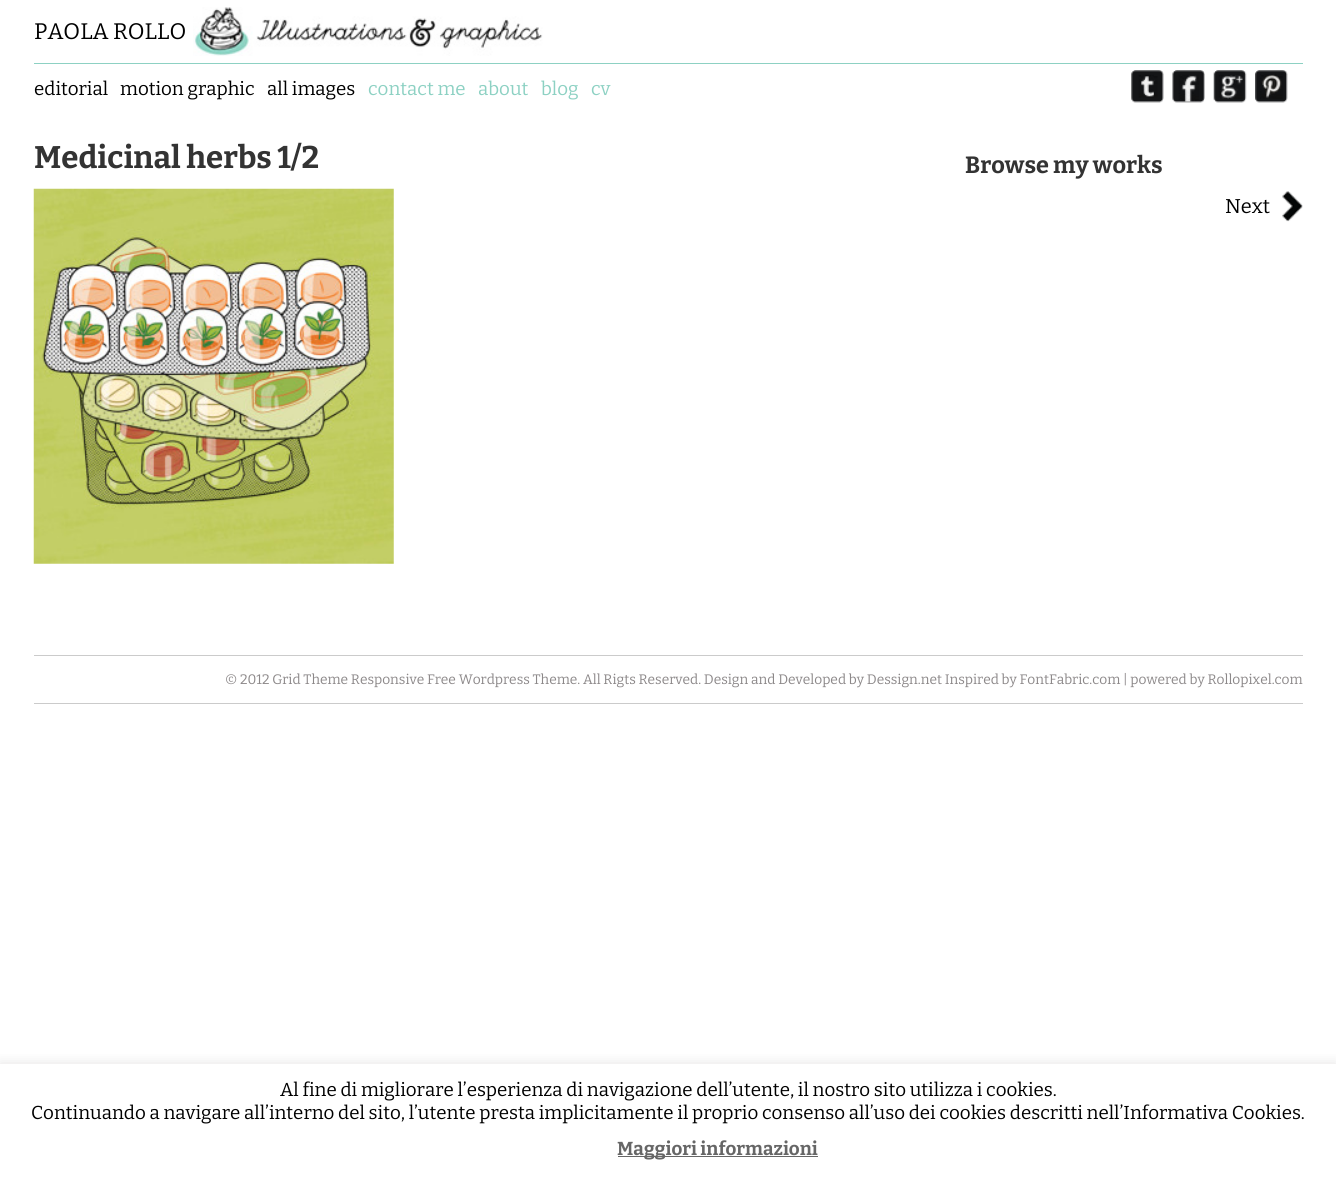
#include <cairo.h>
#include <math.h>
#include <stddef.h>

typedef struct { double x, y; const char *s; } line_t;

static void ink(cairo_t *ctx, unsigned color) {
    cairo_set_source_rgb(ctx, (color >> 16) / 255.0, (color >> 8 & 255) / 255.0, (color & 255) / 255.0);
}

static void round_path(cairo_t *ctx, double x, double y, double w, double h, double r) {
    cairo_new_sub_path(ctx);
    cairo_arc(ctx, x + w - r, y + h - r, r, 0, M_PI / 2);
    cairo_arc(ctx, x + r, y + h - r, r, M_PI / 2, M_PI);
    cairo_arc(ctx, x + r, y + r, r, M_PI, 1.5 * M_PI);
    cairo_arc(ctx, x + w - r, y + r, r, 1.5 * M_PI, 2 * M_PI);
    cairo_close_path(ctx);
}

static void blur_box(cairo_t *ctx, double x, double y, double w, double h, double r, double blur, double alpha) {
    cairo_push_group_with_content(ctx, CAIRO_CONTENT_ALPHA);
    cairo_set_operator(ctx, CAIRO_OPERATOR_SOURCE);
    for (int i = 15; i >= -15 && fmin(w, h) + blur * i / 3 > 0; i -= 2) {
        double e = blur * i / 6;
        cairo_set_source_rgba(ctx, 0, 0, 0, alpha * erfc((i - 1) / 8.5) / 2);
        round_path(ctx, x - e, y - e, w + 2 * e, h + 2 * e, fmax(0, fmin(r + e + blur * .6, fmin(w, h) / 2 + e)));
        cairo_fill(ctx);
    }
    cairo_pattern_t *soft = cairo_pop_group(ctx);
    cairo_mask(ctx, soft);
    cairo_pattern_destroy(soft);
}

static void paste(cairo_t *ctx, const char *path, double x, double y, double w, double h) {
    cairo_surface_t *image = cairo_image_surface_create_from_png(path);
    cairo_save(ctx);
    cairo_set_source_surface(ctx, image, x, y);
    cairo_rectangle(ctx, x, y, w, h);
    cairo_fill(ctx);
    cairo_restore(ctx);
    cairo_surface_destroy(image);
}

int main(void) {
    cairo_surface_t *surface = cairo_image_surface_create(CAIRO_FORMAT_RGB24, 1336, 1183);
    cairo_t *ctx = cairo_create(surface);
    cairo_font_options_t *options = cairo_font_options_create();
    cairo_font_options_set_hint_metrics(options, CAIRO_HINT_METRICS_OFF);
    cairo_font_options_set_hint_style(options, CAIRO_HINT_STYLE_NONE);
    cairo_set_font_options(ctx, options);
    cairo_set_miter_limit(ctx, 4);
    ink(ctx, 0xFFFFFF);
    cairo_paint(ctx);
    ink(ctx, 0x8DD1C3);
    cairo_rectangle(ctx, 34, 63, 1269, 1);
    cairo_fill(ctx);
    paste(ctx, "media/1.png", 193, 7, 350, 49);
    cairo_select_font_face(ctx, "Bitter", CAIRO_FONT_SLANT_NORMAL, CAIRO_FONT_WEIGHT_NORMAL);
    cairo_set_font_size(ctx, 22.5);
    ink(ctx, 0x000000);
    cairo_move_to(ctx, 34, 39);
    cairo_show_text(ctx, "PAOLA ROLLO");
    cairo_set_font_size(ctx, 18.75);
    {
        static const line_t items[] = {
            {34, 95, "editorial"},
            {120, 95, "motion graphic"},
            {267, 95, "all images"},
        };
        for (size_t i = 0; i < sizeof items / sizeof *items; i++) {
            cairo_move_to(ctx, items[i].x, items[i].y);
            cairo_show_text(ctx, items[i].s);
        }
    }
    ink(ctx, 0x8DD1C3);
    {
        static const line_t items[] = {
            {368, 95, "contact me"},
            {478, 95, "about"},
            {541, 95, "blog"},
            {591, 95, "cv"},
        };
        for (size_t i = 0; i < sizeof items / sizeof *items; i++) {
            cairo_move_to(ctx, items[i].x, items[i].y);
            cairo_show_text(ctx, items[i].s);
        }
    }
    paste(ctx, "media/2.png", 1131, 70, 33, 33);
    paste(ctx, "media/3.png", 1172, 70, 33, 33);
    paste(ctx, "media/4.png", 1213, 70, 34, 33);
    paste(ctx, "media/5.png", 1255, 70, 33, 33);
    cairo_select_font_face(ctx, "Bitter", CAIRO_FONT_SLANT_NORMAL, CAIRO_FONT_WEIGHT_BOLD);
    cairo_set_font_size(ctx, 31.25);
    ink(ctx, 0x333333);
    cairo_move_to(ctx, 34, 168);
    cairo_show_text(ctx, "Medicinal herbs 1/2");
    paste(ctx, "media/6.png", 33, 188, 361, 376);
    cairo_set_font_size(ctx, 23.5);
    cairo_move_to(ctx, 965, 173);
    cairo_show_text(ctx, "Browse my works");
    paste(ctx, "media/7.png", 1282, 191, 21, 31);
    cairo_select_font_face(ctx, "Bitter", CAIRO_FONT_SLANT_NORMAL, CAIRO_FONT_WEIGHT_NORMAL);
    cairo_set_font_size(ctx, 20);
    ink(ctx, 0x000000);
    cairo_move_to(ctx, 1225, 213);
    cairo_show_text(ctx, "Next");
    ink(ctx, 0xCBCBCB);
    cairo_rectangle(ctx, 34, 655, 1269, 1);
    cairo_fill(ctx);
    cairo_rectangle(ctx, 34, 703, 1269, 1);
    cairo_fill(ctx);
    cairo_set_font_size(ctx, 13.75);
    ink(ctx, 0x8C8889);
    cairo_move_to(ctx, 225, 684);
    cairo_show_text(ctx, "© 2012 Grid Theme Responsive Free Wordpress Theme. All Rigts Reserved. Design and Developed by Dessign.net Inspired by FontFabric.com | powered by Rollopixel.com");
    cairo_save(ctx);
    cairo_rectangle(ctx, 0, 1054, 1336, 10);
    cairo_clip(ctx);
    ink(ctx, 0xACABAB);
    blur_box(ctx, 0, 1063, 1336, 120, 0, 6, 0.3);
    cairo_restore(ctx);
    cairo_set_font_size(ctx, 18.75);
    ink(ctx, 0x000000);
    cairo_move_to(ctx, 280, 1096);
    cairo_show_text(ctx, "Al fine di migliorare l’esperienza di navigazione dell’utente, il nostro sito utilizza i cookies.");
    cairo_move_to(ctx, 31, 1119);
    cairo_show_text(ctx, "Continuando a navigare all’interno del sito, l’utente presta implicitamente il proprio consenso all’uso dei cookies descritti nell’Informativa Cookies.");
    ink(ctx, 0x666666);
    cairo_rectangle(ctx, 618, 1156, 200, 1);
    cairo_fill(ctx);
    cairo_select_font_face(ctx, "Bitter", CAIRO_FONT_SLANT_NORMAL, CAIRO_FONT_WEIGHT_BOLD);
    cairo_move_to(ctx, 617, 1155);
    cairo_show_text(ctx, "Maggiori informazioni");
    cairo_surface_write_to_png(surface, "image.png");
    cairo_font_options_destroy(options);
    cairo_destroy(ctx);
    cairo_surface_destroy(surface);
    return 0;
}
